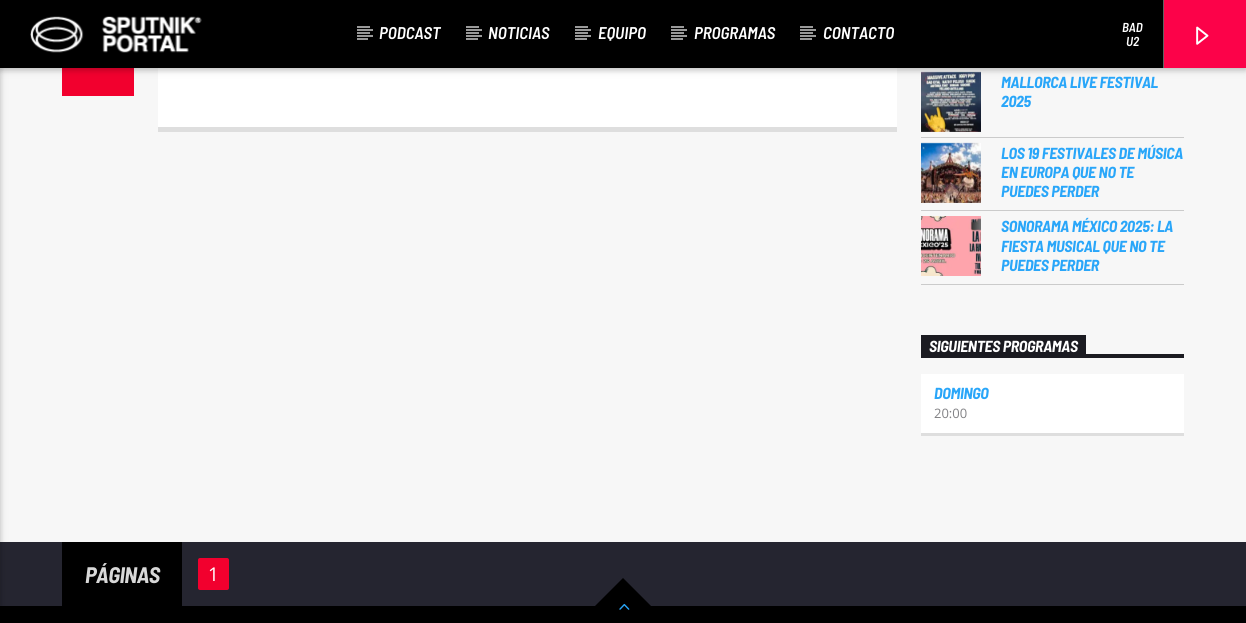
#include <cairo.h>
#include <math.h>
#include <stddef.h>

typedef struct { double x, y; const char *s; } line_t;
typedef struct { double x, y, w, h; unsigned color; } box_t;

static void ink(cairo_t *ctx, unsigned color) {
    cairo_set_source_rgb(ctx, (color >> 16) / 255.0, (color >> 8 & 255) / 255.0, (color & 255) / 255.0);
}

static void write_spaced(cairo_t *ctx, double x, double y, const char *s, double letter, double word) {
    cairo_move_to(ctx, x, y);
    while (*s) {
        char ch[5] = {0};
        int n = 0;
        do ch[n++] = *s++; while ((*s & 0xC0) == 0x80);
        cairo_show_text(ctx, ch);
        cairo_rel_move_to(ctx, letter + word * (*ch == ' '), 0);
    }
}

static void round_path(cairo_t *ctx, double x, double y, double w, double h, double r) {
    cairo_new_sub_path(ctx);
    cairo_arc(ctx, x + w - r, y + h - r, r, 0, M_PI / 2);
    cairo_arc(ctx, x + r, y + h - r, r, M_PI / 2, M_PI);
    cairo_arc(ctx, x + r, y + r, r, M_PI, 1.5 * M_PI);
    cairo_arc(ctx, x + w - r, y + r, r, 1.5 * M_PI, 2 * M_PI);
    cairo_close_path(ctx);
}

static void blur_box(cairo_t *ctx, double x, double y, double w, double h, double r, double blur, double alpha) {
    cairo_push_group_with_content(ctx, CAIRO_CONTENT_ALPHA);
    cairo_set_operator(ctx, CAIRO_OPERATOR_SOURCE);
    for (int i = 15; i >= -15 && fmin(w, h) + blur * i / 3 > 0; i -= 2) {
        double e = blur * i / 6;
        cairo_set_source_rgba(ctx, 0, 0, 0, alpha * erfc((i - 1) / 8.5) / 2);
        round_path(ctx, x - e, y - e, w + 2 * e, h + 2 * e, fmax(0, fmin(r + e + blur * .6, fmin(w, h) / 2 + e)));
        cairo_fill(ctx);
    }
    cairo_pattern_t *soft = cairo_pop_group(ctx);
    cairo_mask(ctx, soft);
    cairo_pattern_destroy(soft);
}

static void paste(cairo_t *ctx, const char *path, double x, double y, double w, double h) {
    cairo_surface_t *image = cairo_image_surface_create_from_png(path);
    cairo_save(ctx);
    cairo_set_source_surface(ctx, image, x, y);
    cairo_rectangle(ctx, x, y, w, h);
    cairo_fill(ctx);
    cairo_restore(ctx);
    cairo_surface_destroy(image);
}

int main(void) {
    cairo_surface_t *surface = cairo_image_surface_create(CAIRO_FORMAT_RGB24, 1246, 623);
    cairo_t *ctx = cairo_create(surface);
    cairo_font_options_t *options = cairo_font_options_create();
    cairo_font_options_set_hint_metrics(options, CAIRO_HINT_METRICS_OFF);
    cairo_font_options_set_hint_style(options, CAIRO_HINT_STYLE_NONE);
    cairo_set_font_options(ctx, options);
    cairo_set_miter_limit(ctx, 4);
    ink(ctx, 0xF7F7F7);
    cairo_paint(ctx);
    ink(ctx, 0xF2002E);
    cairo_rectangle(ctx, 62, 68, 72, 28);
    cairo_fill(ctx);
    ink(ctx, 0xFFFFFF);
    cairo_rectangle(ctx, 158, 68, 739, 59);
    cairo_fill(ctx);
    paste(ctx, "media/3.png", 921, 71, 60, 61);
    ink(ctx, 0x000000);
    blur_box(ctx, 0, 2, 1246, 68, 0, 5, 0.12);
    blur_box(ctx, 0, 2, 1246, 68, 0, 2.5, 0.16);
    {
        static const box_t items[] = {
            {0, 0, 1163, 68, 0x000000},
            {0, 542, 1246, 64, 0x252530},
            {0, 606, 1246, 17, 0x000000},
        };
        for (size_t i = 0; i < sizeof items / sizeof *items; i++) {
            ink(ctx, items[i].color);
            cairo_rectangle(ctx, items[i].x, items[i].y, items[i].w, items[i].h);
            cairo_fill(ctx);
        }
    }
    ink(ctx, 0x000000);
    blur_box(ctx, -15, 2, 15, 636, 0, 5, 0.12);
    blur_box(ctx, -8, 2, 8, 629, 0, 2.5, 0.16);
    paste(ctx, "media/1.png", 30, 16, 172, 37);
    {
        static const box_t items[] = {
            {357, 38, 11, 2, 0x999999},
            {357, 26, 13, 2, 0x999999},
            {357, 32, 13, 2, 0x999999},
        };
        for (size_t i = 0; i < sizeof items / sizeof *items; i++) {
            ink(ctx, items[i].color);
            cairo_rectangle(ctx, items[i].x, items[i].y, items[i].w, items[i].h);
            cairo_fill(ctx);
        }
    }
    cairo_select_font_face(ctx, "Barlow Semi Condensed SemiBold", CAIRO_FONT_SLANT_ITALIC, CAIRO_FONT_WEIGHT_NORMAL);
    cairo_set_font_size(ctx, 17);
    ink(ctx, 0xFFFFFF);
    cairo_move_to(ctx, 379, 39);
    cairo_show_text(ctx, "PODCAST");
    {
        static const box_t items[] = {
            {357, 29, 16, 2, 0x999999},
            {357, 35, 16, 2, 0x999999},
            {466, 38, 12, 2, 0x999999},
            {466, 26, 13, 2, 0x999999},
            {466, 32, 13, 2, 0x999999},
        };
        for (size_t i = 0; i < sizeof items / sizeof *items; i++) {
            ink(ctx, items[i].color);
            cairo_rectangle(ctx, items[i].x, items[i].y, items[i].w, items[i].h);
            cairo_fill(ctx);
        }
    }
    ink(ctx, 0xFFFFFF);
    cairo_move_to(ctx, 488, 39);
    cairo_show_text(ctx, "NOTICIAS");
    {
        static const box_t items[] = {
            {466, 29, 16, 2, 0x999999},
            {466, 35, 16, 2, 0x999999},
            {575, 38, 12, 2, 0x999999},
            {575, 26, 13, 2, 0x999999},
            {575, 32, 13, 2, 0x999999},
        };
        for (size_t i = 0; i < sizeof items / sizeof *items; i++) {
            ink(ctx, items[i].color);
            cairo_rectangle(ctx, items[i].x, items[i].y, items[i].w, items[i].h);
            cairo_fill(ctx);
        }
    }
    ink(ctx, 0xFFFFFF);
    cairo_move_to(ctx, 598, 39);
    cairo_show_text(ctx, "EQUIPO");
    {
        static const box_t items[] = {
            {575, 29, 16, 2, 0x999999},
            {575, 35, 16, 2, 0x999999},
            {671, 38, 12, 2, 0x999999},
            {671, 26, 13, 2, 0x999999},
            {671, 32, 13, 2, 0x999999},
        };
        for (size_t i = 0; i < sizeof items / sizeof *items; i++) {
            ink(ctx, items[i].color);
            cairo_rectangle(ctx, items[i].x, items[i].y, items[i].w, items[i].h);
            cairo_fill(ctx);
        }
    }
    ink(ctx, 0xFFFFFF);
    cairo_move_to(ctx, 694, 39);
    cairo_show_text(ctx, "PROGRAMAS");
    {
        static const box_t items[] = {
            {671, 29, 16, 2, 0x999999},
            {671, 35, 16, 2, 0x999999},
            {800, 38, 12, 2, 0x999999},
            {800, 26, 13, 2, 0x999999},
            {800, 32, 13, 2, 0x999999},
        };
        for (size_t i = 0; i < sizeof items / sizeof *items; i++) {
            ink(ctx, items[i].color);
            cairo_rectangle(ctx, items[i].x, items[i].y, items[i].w, items[i].h);
            cairo_fill(ctx);
        }
    }
    ink(ctx, 0xFFFFFF);
    cairo_move_to(ctx, 823, 39);
    cairo_show_text(ctx, "CONTACTO");
    ink(ctx, 0x999999);
    cairo_rectangle(ctx, 800, 29, 16, 2);
    cairo_fill(ctx);
    cairo_rectangle(ctx, 800, 35, 16, 2);
    cairo_fill(ctx);
    cairo_set_font_size(ctx, 13);
    ink(ctx, 0xFFFFFF);
    cairo_move_to(ctx, 1122, 32);
    cairo_show_text(ctx, "BAD");
    cairo_move_to(ctx, 1126, 46);
    cairo_show_text(ctx, "U2");
    ink(ctx, 0x616161);
    cairo_rectangle(ctx, 1163, 0, 1, 68);
    cairo_fill(ctx);
    ink(ctx, 0xFC0249);
    cairo_rectangle(ctx, 1164, 0, 82, 68);
    cairo_fill(ctx);
    paste(ctx, "media/2.png", 1196, 26, 13, 19);
    ink(ctx, 0xDEDEDE);
    cairo_rectangle(ctx, 158, 127, 739, 5);
    cairo_fill(ctx);
    ink(ctx, 0xCBCBCB);
    cairo_rectangle(ctx, 921, 137, 263, 1);
    cairo_fill(ctx);
    cairo_select_font_face(ctx, "Barlow Semi Condensed", CAIRO_FONT_SLANT_ITALIC, CAIRO_FONT_WEIGHT_BOLD);
    cairo_set_font_size(ctx, 16);
    ink(ctx, 0x29A6F9);
    write_spaced(ctx, 1001, 88, "MALLORCA LIVE FESTIVAL", -0.3, 0);
    write_spaced(ctx, 1001, 107, "2025", -0.3, 0);
    ink(ctx, 0xCBCBCB);
    cairo_rectangle(ctx, 921, 210, 263, 1);
    cairo_fill(ctx);
    paste(ctx, "media/4.png", 921, 142, 60, 61);
    ink(ctx, 0x29A6F9);
    {
        static const line_t items[] = {
            {1001, 159, "LOS 19 FESTIVALES DE MÚSICA"},
            {1001, 178, "EN EUROPA QUE NO TE"},
            {1001, 197, "PUEDES PERDER"},
        };
        for (size_t i = 0; i < sizeof items / sizeof *items; i++) {
            write_spaced(ctx, items[i].x, items[i].y, items[i].s, -0.3, 0);
        }
    }
    ink(ctx, 0xCBCBCB);
    cairo_rectangle(ctx, 921, 284, 263, 1);
    cairo_fill(ctx);
    paste(ctx, "media/5.png", 921, 216, 60, 60);
    ink(ctx, 0x29A6F9);
    {
        static const line_t items[] = {
            {1001, 232, "SONORAMA MÉXICO 2025: LA"},
            {1001, 252, "FIESTA MUSICAL QUE NO TE"},
            {1001, 271, "PUEDES PERDER"},
        };
        for (size_t i = 0; i < sizeof items / sizeof *items; i++) {
            write_spaced(ctx, items[i].x, items[i].y, items[i].s, -0.3, 0);
        }
    }
    ink(ctx, 0x1B1B21);
    cairo_rectangle(ctx, 921, 354, 263, 4);
    cairo_fill(ctx);
    cairo_rectangle(ctx, 921, 335, 165, 19);
    cairo_fill(ctx);
    ink(ctx, 0xFFFFFF);
    write_spaced(ctx, 929, 352, "SIGUIENTES PROGRAMAS", -0.3, 0);
    ink(ctx, 0xDEDEDE);
    cairo_rectangle(ctx, 921, 433, 263, 3);
    cairo_fill(ctx);
    ink(ctx, 0xFFFFFF);
    cairo_rectangle(ctx, 921, 374, 263, 59);
    cairo_fill(ctx);
    ink(ctx, 0x29A6F9);
    write_spaced(ctx, 934, 399, "DOMINGO", -0.3, 0);
    cairo_select_font_face(ctx, "Open Sans", CAIRO_FONT_SLANT_NORMAL, CAIRO_FONT_WEIGHT_NORMAL);
    cairo_set_font_size(ctx, 13);
    ink(ctx, 0x828285);
    cairo_move_to(ctx, 934, 418);
    cairo_show_text(ctx, "20:00");
    ink(ctx, 0x000000);
    cairo_rectangle(ctx, 62, 542, 120, 64);
    cairo_fill(ctx);
    cairo_select_font_face(ctx, "Barlow Semi Condensed", CAIRO_FONT_SLANT_ITALIC, CAIRO_FONT_WEIGHT_BOLD);
    cairo_set_font_size(ctx, 22.5);
    ink(ctx, 0xD8D8D8);
    write_spaced(ctx, 85, 583, "PÁGINAS", -0.5, 0);
    ink(ctx, 0xF2002E);
    round_path(ctx, 198, 558, 31, 32, 2);
    cairo_fill(ctx);
    cairo_select_font_face(ctx, "Open Sans", CAIRO_FONT_SLANT_NORMAL, CAIRO_FONT_WEIGHT_NORMAL);
    cairo_set_font_size(ctx, 19);
    ink(ctx, 0xFFFFFF);
    cairo_move_to(ctx, 208, 581);
    cairo_show_text(ctx, "1");
    ink(ctx, 0x000000);
    cairo_new_path(ctx);
    cairo_move_to(ctx, 595, 606);
    cairo_line_to(ctx, 623, 578);
    cairo_line_to(ctx, 651, 606);
    cairo_line_to(ctx, 623, 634);
    cairo_close_path(ctx);
    cairo_fill(ctx);
    paste(ctx, "media/6.png", 619, 603, 11, 7);
    cairo_surface_write_to_png(surface, "image.png");
    cairo_font_options_destroy(options);
    cairo_destroy(ctx);
    cairo_surface_destroy(surface);
    return 0;
}
